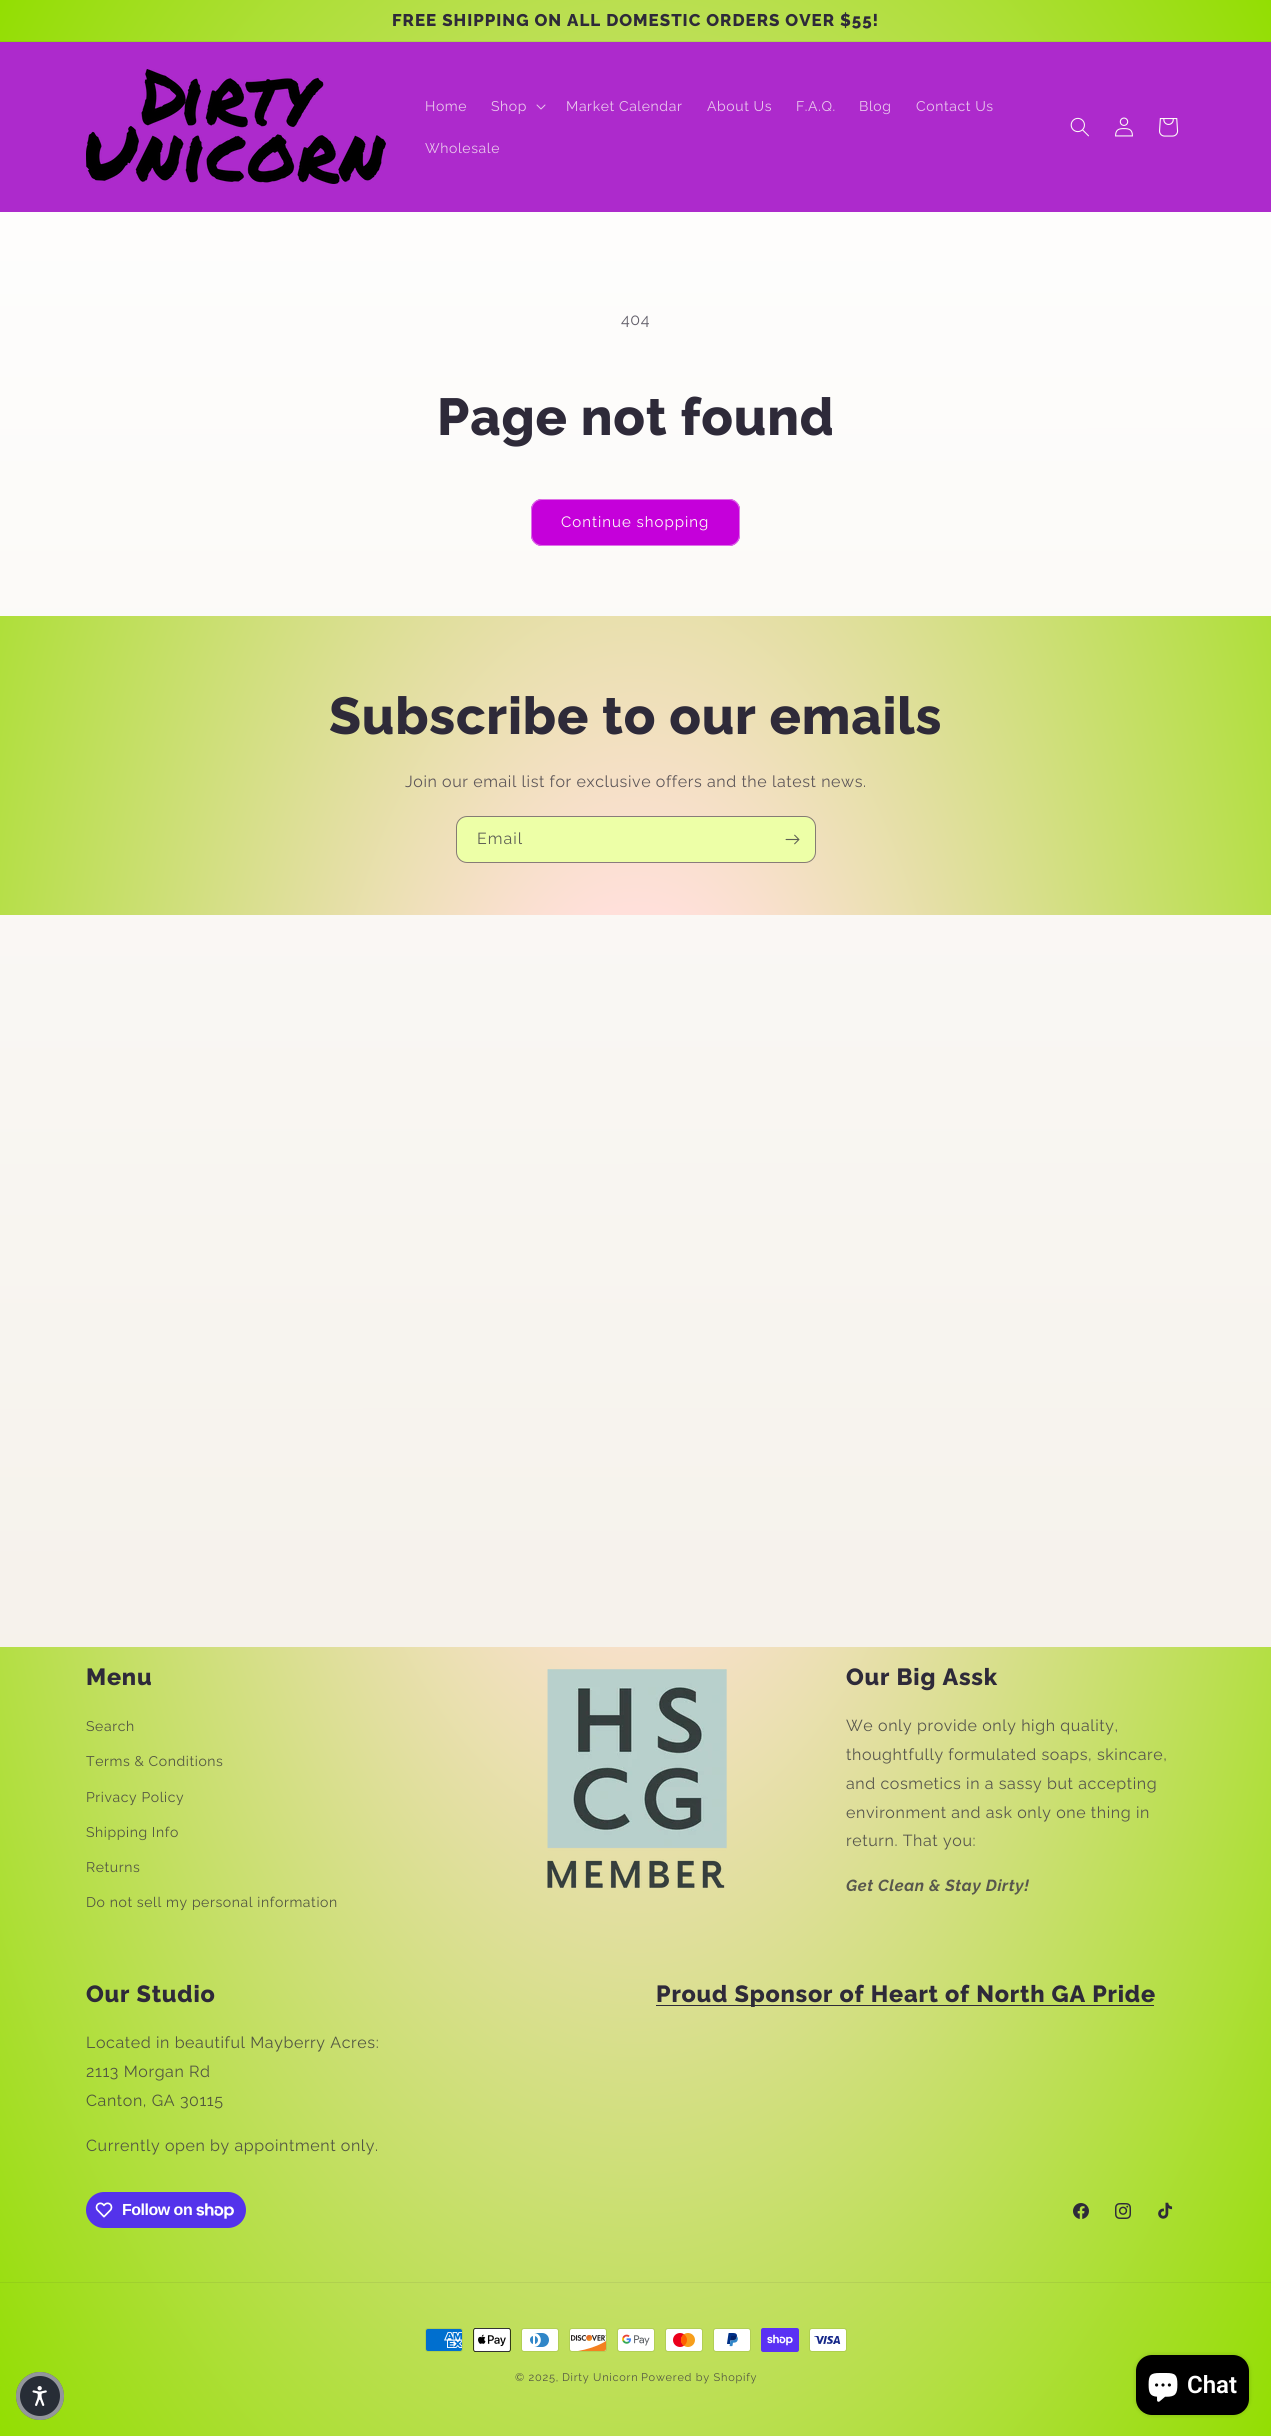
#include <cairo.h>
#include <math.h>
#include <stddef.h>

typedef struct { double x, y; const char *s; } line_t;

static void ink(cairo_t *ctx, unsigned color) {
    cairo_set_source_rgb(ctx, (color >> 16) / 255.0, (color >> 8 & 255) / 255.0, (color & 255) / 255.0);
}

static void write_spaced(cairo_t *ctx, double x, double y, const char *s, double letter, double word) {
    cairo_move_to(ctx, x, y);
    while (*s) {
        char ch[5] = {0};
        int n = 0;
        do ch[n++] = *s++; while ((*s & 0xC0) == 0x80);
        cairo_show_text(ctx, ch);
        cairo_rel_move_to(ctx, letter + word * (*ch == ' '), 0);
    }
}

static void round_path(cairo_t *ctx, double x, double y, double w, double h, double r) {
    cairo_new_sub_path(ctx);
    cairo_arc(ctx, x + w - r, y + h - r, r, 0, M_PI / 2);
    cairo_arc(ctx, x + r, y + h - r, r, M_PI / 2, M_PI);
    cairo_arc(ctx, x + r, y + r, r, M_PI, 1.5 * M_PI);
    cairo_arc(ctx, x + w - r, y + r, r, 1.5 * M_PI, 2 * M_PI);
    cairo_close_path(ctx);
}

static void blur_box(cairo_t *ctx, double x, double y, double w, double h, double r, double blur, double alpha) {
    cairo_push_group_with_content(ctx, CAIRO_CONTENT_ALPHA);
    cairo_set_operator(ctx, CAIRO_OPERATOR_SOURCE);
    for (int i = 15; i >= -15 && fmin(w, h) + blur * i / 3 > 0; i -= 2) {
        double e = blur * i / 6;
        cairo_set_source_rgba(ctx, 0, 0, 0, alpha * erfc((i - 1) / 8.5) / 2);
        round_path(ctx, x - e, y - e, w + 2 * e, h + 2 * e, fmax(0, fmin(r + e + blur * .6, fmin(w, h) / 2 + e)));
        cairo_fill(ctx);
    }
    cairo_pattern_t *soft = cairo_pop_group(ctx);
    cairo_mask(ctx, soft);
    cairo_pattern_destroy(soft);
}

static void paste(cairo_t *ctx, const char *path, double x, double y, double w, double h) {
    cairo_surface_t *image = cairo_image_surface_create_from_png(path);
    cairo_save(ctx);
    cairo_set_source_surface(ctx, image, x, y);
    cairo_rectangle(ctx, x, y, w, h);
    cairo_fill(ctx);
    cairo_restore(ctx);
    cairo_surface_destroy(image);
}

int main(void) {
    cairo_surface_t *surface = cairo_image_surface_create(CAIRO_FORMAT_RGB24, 1271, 2436);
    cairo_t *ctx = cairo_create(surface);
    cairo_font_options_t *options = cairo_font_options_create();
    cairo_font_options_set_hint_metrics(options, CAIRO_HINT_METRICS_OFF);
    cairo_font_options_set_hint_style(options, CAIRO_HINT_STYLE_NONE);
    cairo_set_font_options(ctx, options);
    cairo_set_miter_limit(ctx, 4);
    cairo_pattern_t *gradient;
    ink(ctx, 0xFFFFFF);
    cairo_paint(ctx);
    gradient = cairo_pattern_create_linear(635, 0, 636, 2436);
    cairo_pattern_add_color_stop_rgba(gradient, 0, 1, 1, 1, 1);
    cairo_pattern_add_color_stop_rgba(gradient, 1, 0.945, 0.922, 0.886, 1);
    cairo_set_source(ctx, gradient);
    cairo_pattern_destroy(gradient);
    cairo_rectangle(ctx, 0, 212, 1271, 1435);
    cairo_fill(ctx);
    gradient = cairo_pattern_create_radial(0, 0, 0, 0, 0, 1);
    cairo_pattern_set_matrix(gradient, &(cairo_matrix_t){1.0 / 899, 0, 0, 1.0 / 1723, -1.0 * 636 / 899, -1.0 * 1218 / 1723});
    cairo_pattern_add_color_stop_rgba(gradient, 0, 1, 0.898, 0.898, 1);
    cairo_pattern_add_color_stop_rgba(gradient, 0.18, 1, 0.878, 0.855, 1);
    cairo_pattern_add_color_stop_rgba(gradient, 1, 0.576, 0.871, 0.008, 1);
    cairo_set_source(ctx, gradient);
    cairo_pattern_destroy(gradient);
    cairo_rectangle(ctx, 0, 0, 1271, 41);
    cairo_fill(ctx);
    gradient = cairo_pattern_create_radial(0, 0, 0, 0, 0, 1);
    cairo_pattern_set_matrix(gradient, &(cairo_matrix_t){1.0 / 899, 0, 0, 1.0 / 1723, -1.0 * 636 / 899, -1.0 * 1218 / 1723});
    cairo_pattern_add_color_stop_rgba(gradient, 0, 0.933, 0.839, 0.843, 1);
    cairo_pattern_add_color_stop_rgba(gradient, 0.18, 0.933, 0.82, 0.804, 1);
    cairo_pattern_add_color_stop_rgba(gradient, 1, 0.545, 0.816, 0.024, 1);
    cairo_set_source(ctx, gradient);
    cairo_pattern_destroy(gradient);
    cairo_rectangle(ctx, 0, 41, 1271, 1);
    cairo_fill(ctx);
    cairo_select_font_face(ctx, "Raleway ExtraBold", CAIRO_FONT_SLANT_NORMAL, CAIRO_FONT_WEIGHT_NORMAL);
    cairo_set_font_size(ctx, 16.9);
    ink(ctx, 0x2E2A39);
    write_spaced(ctx, 392, 26, "FREE SHIPPING ON ALL DOMESTIC ORDERS OVER $55!", 1, 0);
    ink(ctx, 0xAD2ACC);
    cairo_rectangle(ctx, 0, 42, 1271, 170);
    cairo_fill(ctx);
    paste(ctx, "media/1.png", 86, 69, 300, 115);
    cairo_select_font_face(ctx, "Raleway", CAIRO_FONT_SLANT_NORMAL, CAIRO_FONT_WEIGHT_NORMAL);
    cairo_set_font_size(ctx, 14);
    ink(ctx, 0xE9C7EC);
    write_spaced(ctx, 425, 111, "Home", 0.6, 0);
    write_spaced(ctx, 491, 111, "Shop", 0.6, 0);
    paste(ctx, "media/2.png", 536, 104, 10, 6);
    {
        static const line_t items[] = {
            {566, 111, "Market Calendar"},
            {707, 111, "About Us"},
            {796, 111, "F.A.Q."},
            {859, 111, "Blog"},
            {916, 111, "Contact Us"},
            {425, 153, "Wholesale"},
        };
        for (size_t i = 0; i < sizeof items / sizeof *items; i++) {
            write_spaced(ctx, items[i].x, items[i].y, items[i].s, 0.6, 0);
        }
    }
    paste(ctx, "media/3.png", 1070, 117, 19, 20);
    paste(ctx, "media/4.png", 1115, 117, 18, 20);
    paste(ctx, "media/5.png", 1159, 118, 20, 19);
    cairo_set_font_size(ctx, 16);
    ink(ctx, 0x625F6A);
    write_spaced(ctx, 621, 325, "404", 0.6, 0);
    cairo_select_font_face(ctx, "Raleway ExtraBold", CAIRO_FONT_SLANT_NORMAL, CAIRO_FONT_WEIGHT_NORMAL);
    cairo_set_font_size(ctx, 52);
    ink(ctx, 0x2E2A39);
    write_spaced(ctx, 437, 435, "Page not found", 0.8, 0);
    ink(ctx, 0xC500DA);
    round_path(ctx, 531, 499, 209, 47, 11);
    cairo_fill(ctx);
    round_path(ctx, 531.5, 499.5, 208, 46, 10.5);
    cairo_set_line_width(ctx, 1);
    cairo_stroke(ctx);
    round_path(ctx, 531.5, 499.5, 208, 46, 10.5);
    cairo_set_source_rgba(ctx, 0.992, 0.984, 0.969, 0.45);
    cairo_stroke(ctx);
    cairo_select_font_face(ctx, "Raleway", CAIRO_FONT_SLANT_NORMAL, CAIRO_FONT_WEIGHT_NORMAL);
    cairo_set_font_size(ctx, 15);
    ink(ctx, 0xFDFBF7);
    write_spaced(ctx, 561, 527, "Continue shopping", 1, 0);
    gradient = cairo_pattern_create_radial(0, 0, 0, 0, 0, 1);
    cairo_pattern_set_matrix(gradient, &(cairo_matrix_t){1.0 / 899, 0, 0, 1.0 / 1723, -1.0 * 636 / 899, -1.0 * 1218 / 1723});
    cairo_pattern_add_color_stop_rgba(gradient, 0, 1, 0.898, 0.898, 1);
    cairo_pattern_add_color_stop_rgba(gradient, 0.18, 1, 0.878, 0.855, 1);
    cairo_pattern_add_color_stop_rgba(gradient, 1, 0.576, 0.871, 0.008, 1);
    cairo_set_source(ctx, gradient);
    cairo_pattern_destroy(gradient);
    cairo_rectangle(ctx, 0, 616, 1271, 299);
    cairo_fill(ctx);
    cairo_select_font_face(ctx, "Raleway ExtraBold", CAIRO_FONT_SLANT_NORMAL, CAIRO_FONT_WEIGHT_NORMAL);
    cairo_set_font_size(ctx, 52);
    ink(ctx, 0x2E2A39);
    write_spaced(ctx, 329, 734, "Subscribe to our emails", 0.8, 0);
    cairo_select_font_face(ctx, "Raleway", CAIRO_FONT_SLANT_NORMAL, CAIRO_FONT_WEIGHT_NORMAL);
    cairo_set_font_size(ctx, 16);
    ink(ctx, 0x5F585A);
    write_spaced(ctx, 405, 787, "Join our email list for exclusive offers and the latest news.", 0.6, 0);
    ink(ctx, 0xEDFFA7);
    round_path(ctx, 457, 817, 358, 45, 10);
    cairo_fill(ctx);
    round_path(ctx, 456.5, 816.5, 359, 46, 10.5);
    cairo_set_source_rgba(ctx, 0.18, 0.165, 0.224, 0.55);
    cairo_stroke(ctx);
    ink(ctx, 0x5E5F55);
    write_spaced(ctx, 477, 844, "Email", 1, 0);
    paste(ctx, "media/6.png", 785, 834, 15, 11);
    gradient = cairo_pattern_create_radial(0, 0, 0, 0, 0, 1);
    cairo_pattern_set_matrix(gradient, &(cairo_matrix_t){1.0 / 899, 0, 0, 1.0 / 1723, -1.0 * 636 / 899, -1.0 * 1218 / 1723});
    cairo_pattern_add_color_stop_rgba(gradient, 0, 1, 0.898, 0.898, 1);
    cairo_pattern_add_color_stop_rgba(gradient, 0.18, 1, 0.878, 0.855, 1);
    cairo_pattern_add_color_stop_rgba(gradient, 1, 0.576, 0.871, 0.008, 1);
    cairo_set_source(ctx, gradient);
    cairo_pattern_destroy(gradient);
    cairo_rectangle(ctx, 0, 1647, 1271, 789);
    cairo_fill(ctx);
    gradient = cairo_pattern_create_radial(0, 0, 0, 0, 0, 1);
    cairo_pattern_set_matrix(gradient, &(cairo_matrix_t){1.0 / 899, 0, 0, 1.0 / 1723, -1.0 * 636 / 899, -1.0 * 1218 / 1723});
    cairo_pattern_add_color_stop_rgba(gradient, 0, 0.933, 0.839, 0.843, 1);
    cairo_pattern_add_color_stop_rgba(gradient, 0.18, 0.933, 0.82, 0.804, 1);
    cairo_pattern_add_color_stop_rgba(gradient, 1, 0.545, 0.816, 0.024, 1);
    cairo_set_source(ctx, gradient);
    cairo_pattern_destroy(gradient);
    cairo_rectangle(ctx, 0, 2282, 1271, 1);
    cairo_fill(ctx);
    cairo_select_font_face(ctx, "Raleway ExtraBold", CAIRO_FONT_SLANT_NORMAL, CAIRO_FONT_WEIGHT_NORMAL);
    cairo_set_font_size(ctx, 23.4);
    ink(ctx, 0x2E2A39);
    write_spaced(ctx, 86, 1685, "Menu", 0.8, 0);
    cairo_select_font_face(ctx, "Raleway", CAIRO_FONT_SLANT_NORMAL, CAIRO_FONT_WEIGHT_NORMAL);
    cairo_set_font_size(ctx, 14);
    ink(ctx, 0x535742);
    {
        static const line_t items[] = {
            {86, 1731, "Search"},
            {86, 1766, "Terms & Conditions"},
            {86, 1802, "Privacy Policy"},
            {86, 1837, "Shipping Info"},
            {86, 1872, "Returns"},
            {86, 1907, "Do not sell my personal information"},
        };
        for (size_t i = 0; i < sizeof items / sizeof *items; i++) {
            write_spaced(ctx, items[i].x, items[i].y, items[i].s, 0.6, 0);
        }
    }
    paste(ctx, "media/7.png", 547, 1669, 180, 219);
    cairo_select_font_face(ctx, "Raleway ExtraBold", CAIRO_FONT_SLANT_NORMAL, CAIRO_FONT_WEIGHT_NORMAL);
    cairo_set_font_size(ctx, 23.4);
    ink(ctx, 0x2E2A39);
    write_spaced(ctx, 846, 1685, "Our Big Assk", 0.8, 0);
    cairo_select_font_face(ctx, "Raleway", CAIRO_FONT_SLANT_NORMAL, CAIRO_FONT_WEIGHT_NORMAL);
    cairo_set_font_size(ctx, 16);
    ink(ctx, 0x58574D);
    {
        static const line_t items[] = {
            {846, 1731, "We only provide only high quality,"},
            {846, 1760, "thoughtfully formulated soaps, skincare,"},
            {846, 1789, "and cosmetics in a sassy but accepting"},
            {846, 1818, "environment and ask only one thing in"},
            {846, 1846, "return. That you:"},
        };
        for (size_t i = 0; i < sizeof items / sizeof *items; i++) {
            write_spaced(ctx, items[i].x, items[i].y, items[i].s, 0.6, 0);
        }
    }
    cairo_select_font_face(ctx, "Raleway", CAIRO_FONT_SLANT_ITALIC, CAIRO_FONT_WEIGHT_BOLD);
    write_spaced(ctx, 846, 1891, "Get Clean & Stay Dirty!", 0.6, 0);
    cairo_select_font_face(ctx, "Raleway ExtraBold", CAIRO_FONT_SLANT_NORMAL, CAIRO_FONT_WEIGHT_NORMAL);
    cairo_set_font_size(ctx, 23.4);
    ink(ctx, 0x2E2A39);
    write_spaced(ctx, 86, 2002, "Our Studio", 0.8, 0);
    cairo_select_font_face(ctx, "Raleway", CAIRO_FONT_SLANT_NORMAL, CAIRO_FONT_WEIGHT_NORMAL);
    cairo_set_font_size(ctx, 16);
    ink(ctx, 0x535742);
    write_spaced(ctx, 86, 2048, "Located in beautiful Mayberry Acres:", 0.6, 0);
    write_spaced(ctx, 86, 2077, "2113 Morgan Rd", 0.6, 0);
    ink(ctx, 0x50573C);
    write_spaced(ctx, 86, 2106, "Canton, GA 30115", 0.6, 0);
    ink(ctx, 0x535742);
    write_spaced(ctx, 86, 2151, "Currently open by appointment only.", 0.6, 0);
    ink(ctx, 0x2E2A39);
    cairo_rectangle(ctx, 656, 2005, 498, 1);
    cairo_fill(ctx);
    cairo_select_font_face(ctx, "Raleway ExtraBold", CAIRO_FONT_SLANT_NORMAL, CAIRO_FONT_WEIGHT_NORMAL);
    cairo_set_font_size(ctx, 23.4);
    write_spaced(ctx, 656, 2002, "Proud Sponsor of Heart of North GA Pride", 0.8, 0);
    ink(ctx, 0x5433EB);
    round_path(ctx, 86, 2192, 160, 36, 18);
    cairo_fill(ctx);
    paste(ctx, "media/8.png", 95, 2202, 18, 16);
    cairo_select_font_face(ctx, "Liberation Sans", CAIRO_FONT_SLANT_NORMAL, CAIRO_FONT_WEIGHT_BOLD);
    cairo_set_font_size(ctx, 16);
    ink(ctx, 0xFFFFFF);
    write_spaced(ctx, 122, 2215, "Follow on", -0.5, 0);
    paste(ctx, "media/9.png", 196, 2203, 38, 16);
    paste(ctx, "media/10.png", 1073, 2203, 16, 16);
    paste(ctx, "media/11.png", 1115, 2203, 16, 16);
    paste(ctx, "media/12.png", 1158, 2202, 15, 17);
    paste(ctx, "media/13.png", 425, 2328, 38, 24);
    paste(ctx, "media/14.png", 473, 2328, 38, 24);
    paste(ctx, "media/15.png", 521, 2328, 38, 24);
    paste(ctx, "media/16.png", 569, 2328, 38, 24);
    paste(ctx, "media/17.png", 617, 2328, 38, 24);
    paste(ctx, "media/18.png", 665, 2328, 38, 24);
    paste(ctx, "media/19.png", 713, 2328, 38, 24);
    paste(ctx, "media/20.png", 761, 2328, 38, 24);
    paste(ctx, "media/21.png", 809, 2328, 38, 24);
    cairo_select_font_face(ctx, "Raleway", CAIRO_FONT_SLANT_NORMAL, CAIRO_FONT_WEIGHT_NORMAL);
    cairo_set_font_size(ctx, 11);
    ink(ctx, 0x535742);
    {
        static const line_t items[] = {
            {515, 2381, "© 2025,"},
            {562, 2381, "Dirty Unicorn"},
            {641, 2381, "Powered by Shopify"},
        };
        for (size_t i = 0; i < sizeof items / sizeof *items; i++) {
            write_spaced(ctx, items[i].x, items[i].y, items[i].s, 0.75, 0);
        }
    }
    ink(ctx, 0x272D36);
    cairo_new_path(ctx);
    cairo_arc(ctx, 40, 2396, 24, 0, 2 * M_PI);
    cairo_fill(ctx);
    cairo_arc(ctx, 40, 2396, 22, 0, 2 * M_PI);
    cairo_set_source_rgba(ctx, 1, 1, 1, 0.5);
    cairo_set_line_width(ctx, 4);
    cairo_stroke(ctx);
    paste(ctx, "media/22.png", 32, 2386, 15, 20);
    ink(ctx, 0x000000);
    blur_box(ctx, 1136, 2355, 113, 60, 16, 2.5, 0.15);
    ink(ctx, 0x000000);
    round_path(ctx, 1136, 2355, 113, 60, 16);
    cairo_fill(ctx);
    paste(ctx, "media/23.png", 1148, 2373, 30, 29);
    cairo_select_font_face(ctx, "Roboto SemiBold", CAIRO_FONT_SLANT_NORMAL, CAIRO_FONT_WEIGHT_NORMAL);
    cairo_set_font_size(ctx, 24);
    ink(ctx, 0xFFFFFF);
    cairo_move_to(ctx, 1187, 2393);
    cairo_show_text(ctx, "Chat");
    cairo_surface_write_to_png(surface, "image.png");
    cairo_font_options_destroy(options);
    cairo_destroy(ctx);
    cairo_surface_destroy(surface);
    return 0;
}
